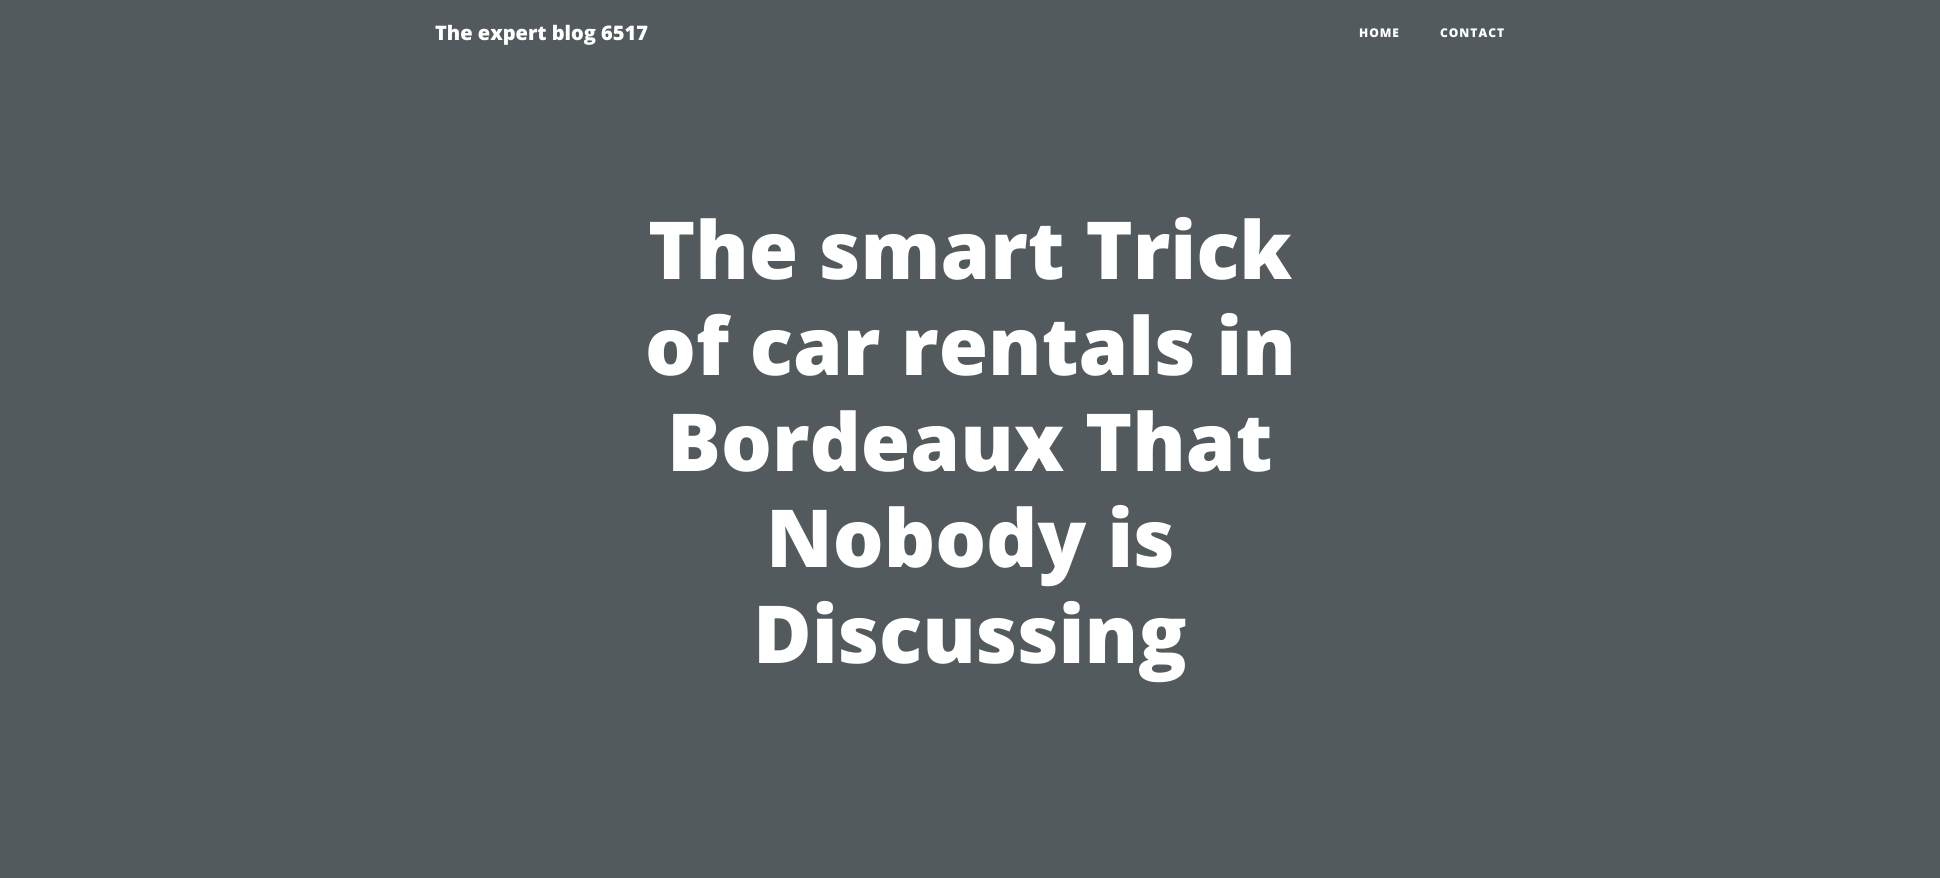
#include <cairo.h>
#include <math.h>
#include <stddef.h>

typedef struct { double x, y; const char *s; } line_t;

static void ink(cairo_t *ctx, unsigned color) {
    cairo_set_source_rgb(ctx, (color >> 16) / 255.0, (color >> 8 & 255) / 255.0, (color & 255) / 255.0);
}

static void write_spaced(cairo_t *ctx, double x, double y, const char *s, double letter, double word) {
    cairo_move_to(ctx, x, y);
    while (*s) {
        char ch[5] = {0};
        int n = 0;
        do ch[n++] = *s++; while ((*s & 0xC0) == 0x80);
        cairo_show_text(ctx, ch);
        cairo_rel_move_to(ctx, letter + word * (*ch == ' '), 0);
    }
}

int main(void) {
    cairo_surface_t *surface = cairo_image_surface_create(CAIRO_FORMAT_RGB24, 1940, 878);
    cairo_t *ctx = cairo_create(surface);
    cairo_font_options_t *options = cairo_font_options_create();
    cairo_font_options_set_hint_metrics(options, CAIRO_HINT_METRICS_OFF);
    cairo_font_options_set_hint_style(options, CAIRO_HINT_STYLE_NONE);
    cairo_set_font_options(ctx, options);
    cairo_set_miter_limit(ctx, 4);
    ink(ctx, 0x535A5E);
    cairo_paint(ctx);
    cairo_select_font_face(ctx, "Open Sans ExtraBold", CAIRO_FONT_SLANT_NORMAL, CAIRO_FONT_WEIGHT_NORMAL);
    cairo_set_font_size(ctx, 20);
    ink(ctx, 0xFFFFFF);
    cairo_move_to(ctx, 435, 40);
    cairo_show_text(ctx, "The expert blog 6517");
    cairo_set_font_size(ctx, 12);
    write_spaced(ctx, 1359, 37, "HOME", 1, 0);
    write_spaced(ctx, 1440, 37, "CONTACT", 1, 0);
    cairo_set_font_size(ctx, 80);
    {
        static const line_t items[] = {
            {648, 279, "The smart Trick"},
            {645, 375, "of car rentals in"},
            {667, 471, "Bordeaux That"},
            {766, 567, "Nobody is"},
            {753, 663, "Discussing"},
        };
        for (size_t i = 0; i < sizeof items / sizeof *items; i++) {
            cairo_move_to(ctx, items[i].x, items[i].y);
            cairo_show_text(ctx, items[i].s);
        }
    }
    cairo_surface_write_to_png(surface, "image.png");
    cairo_font_options_destroy(options);
    cairo_destroy(ctx);
    cairo_surface_destroy(surface);
    return 0;
}
